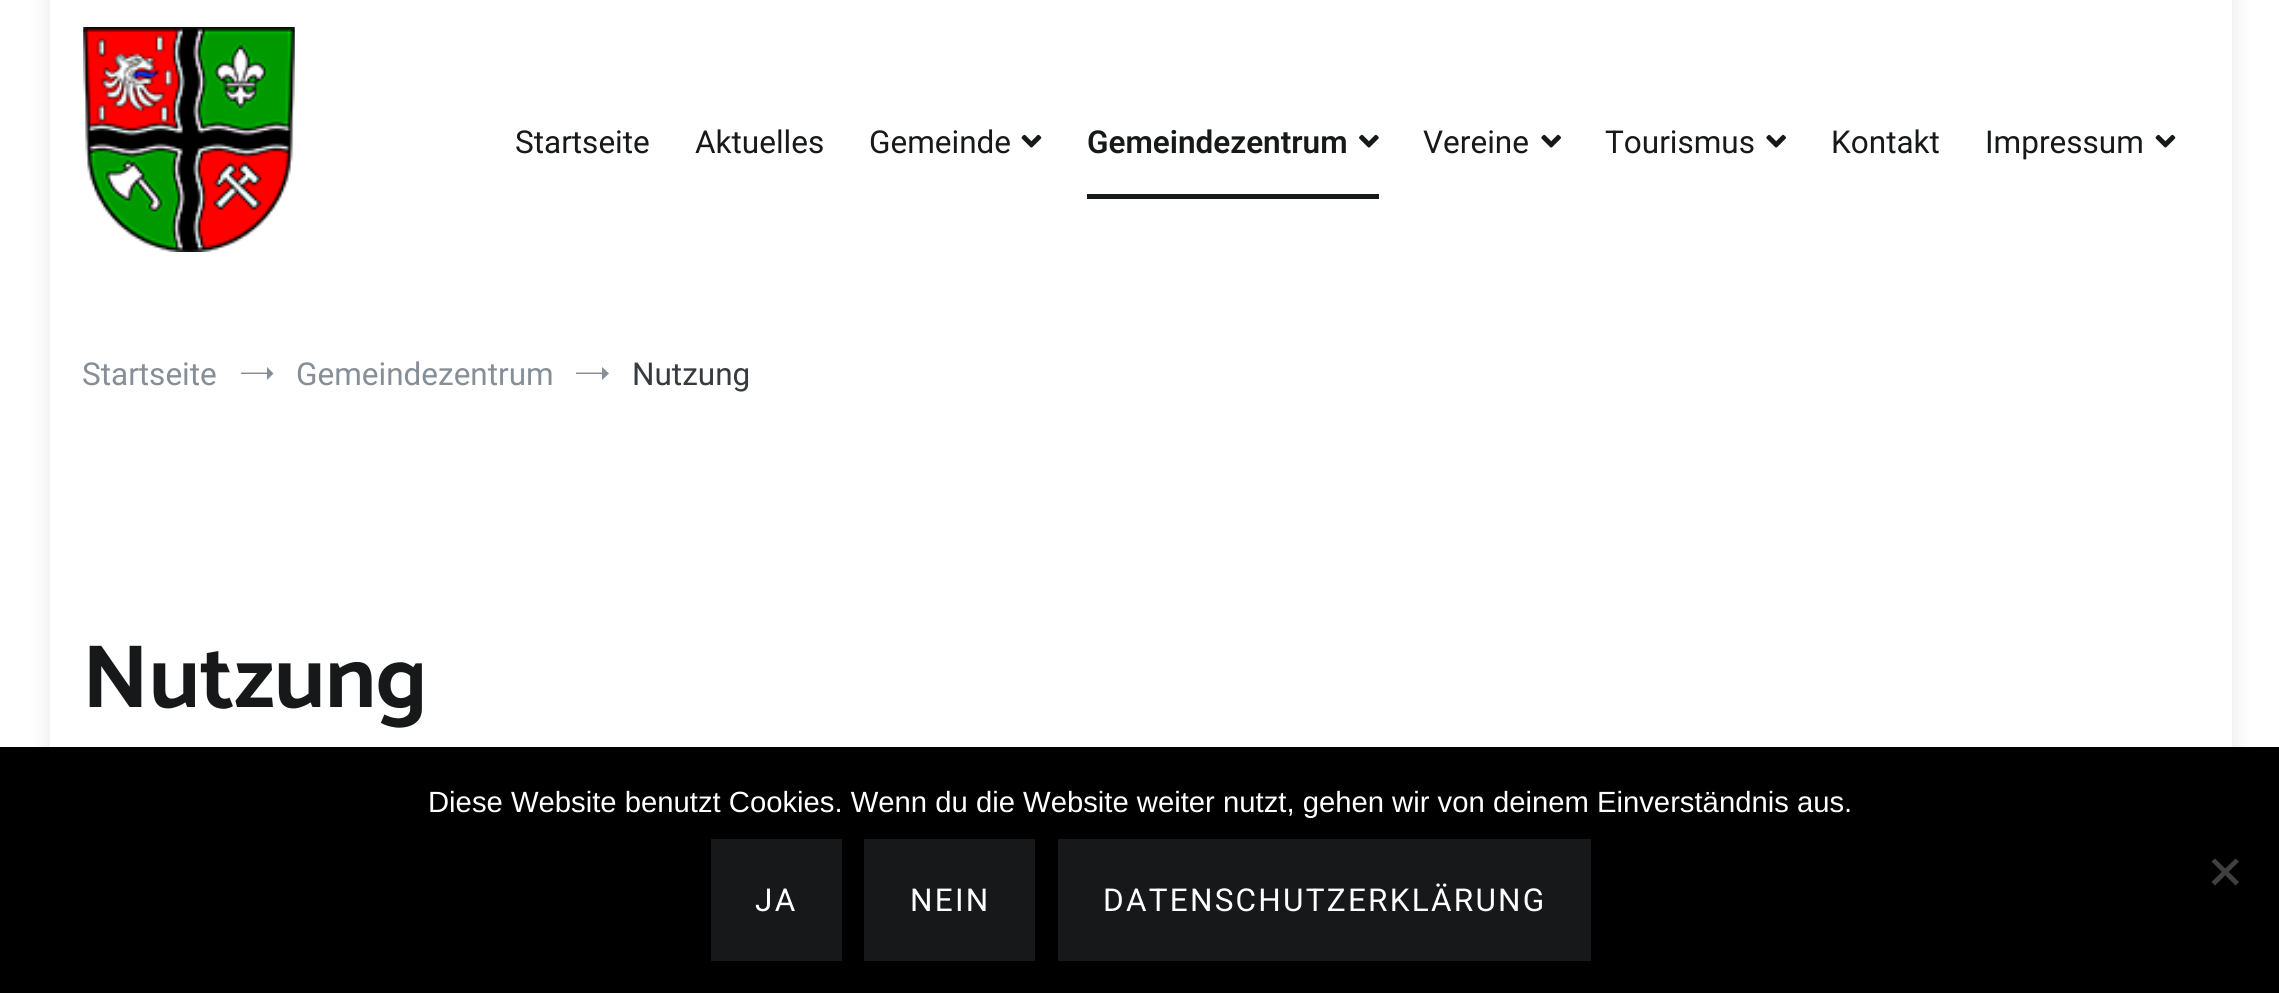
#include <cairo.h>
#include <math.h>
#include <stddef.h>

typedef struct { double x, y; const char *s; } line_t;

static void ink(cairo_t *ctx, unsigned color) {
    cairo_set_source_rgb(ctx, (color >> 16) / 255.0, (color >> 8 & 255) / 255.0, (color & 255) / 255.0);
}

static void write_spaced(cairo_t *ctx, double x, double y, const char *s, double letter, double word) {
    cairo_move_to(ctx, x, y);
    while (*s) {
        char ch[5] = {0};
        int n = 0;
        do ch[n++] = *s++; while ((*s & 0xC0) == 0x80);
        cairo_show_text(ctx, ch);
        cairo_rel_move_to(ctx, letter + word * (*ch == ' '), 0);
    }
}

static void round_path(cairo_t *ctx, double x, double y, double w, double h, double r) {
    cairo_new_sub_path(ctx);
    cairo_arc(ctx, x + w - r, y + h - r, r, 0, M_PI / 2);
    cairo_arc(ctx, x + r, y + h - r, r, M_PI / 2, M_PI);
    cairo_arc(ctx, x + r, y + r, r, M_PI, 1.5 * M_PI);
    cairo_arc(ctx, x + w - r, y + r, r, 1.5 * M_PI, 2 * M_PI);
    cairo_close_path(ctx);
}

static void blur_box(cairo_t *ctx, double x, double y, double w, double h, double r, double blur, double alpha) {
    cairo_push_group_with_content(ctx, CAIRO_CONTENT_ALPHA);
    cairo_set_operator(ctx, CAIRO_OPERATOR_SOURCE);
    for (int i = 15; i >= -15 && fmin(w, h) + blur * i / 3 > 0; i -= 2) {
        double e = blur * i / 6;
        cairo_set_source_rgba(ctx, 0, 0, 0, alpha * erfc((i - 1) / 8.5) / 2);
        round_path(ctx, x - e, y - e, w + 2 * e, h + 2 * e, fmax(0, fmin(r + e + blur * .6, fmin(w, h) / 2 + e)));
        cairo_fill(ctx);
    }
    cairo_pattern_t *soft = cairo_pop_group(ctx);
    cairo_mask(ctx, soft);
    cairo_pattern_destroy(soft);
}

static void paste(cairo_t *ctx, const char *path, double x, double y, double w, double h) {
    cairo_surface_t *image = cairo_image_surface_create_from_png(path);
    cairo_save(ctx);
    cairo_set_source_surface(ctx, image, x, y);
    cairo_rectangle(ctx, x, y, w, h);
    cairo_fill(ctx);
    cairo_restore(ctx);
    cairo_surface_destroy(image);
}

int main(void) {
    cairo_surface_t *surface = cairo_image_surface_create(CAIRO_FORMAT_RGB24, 2279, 993);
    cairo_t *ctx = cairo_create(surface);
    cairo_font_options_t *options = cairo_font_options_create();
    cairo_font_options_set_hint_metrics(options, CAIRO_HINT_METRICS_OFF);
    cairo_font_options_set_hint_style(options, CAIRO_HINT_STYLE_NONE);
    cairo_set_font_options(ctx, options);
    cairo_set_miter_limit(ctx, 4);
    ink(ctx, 0xFFFFFF);
    cairo_paint(ctx);
    cairo_save(ctx);
    cairo_set_fill_rule(ctx, CAIRO_FILL_RULE_EVEN_ODD);
    cairo_new_path(ctx);
    cairo_move_to(ctx, 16, 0);
    cairo_line_to(ctx, 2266, 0);
    cairo_line_to(ctx, 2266, 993);
    cairo_line_to(ctx, 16, 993);
    cairo_close_path(ctx);
    cairo_move_to(ctx, 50, -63);
    cairo_line_to(ctx, 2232, -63);
    cairo_line_to(ctx, 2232, 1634);
    cairo_line_to(ctx, 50, 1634);
    cairo_close_path(ctx);
    cairo_clip(ctx);
    ink(ctx, 0x000000);
    blur_box(ctx, 50, -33, 2182, 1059, 0, 11, 0.1);
    cairo_restore(ctx);
    paste(ctx, "media/1.png", 83, 27, 212, 225);
    cairo_select_font_face(ctx, "Roboto", CAIRO_FONT_SLANT_NORMAL, CAIRO_FONT_WEIGHT_NORMAL);
    cairo_set_font_size(ctx, 31.5);
    ink(ctx, 0x16181A);
    {
        static const line_t items[] = {
            {515, 153, "Startseite"},
            {695, 153, "Aktuelles"},
            {869, 153, "Gemeinde"},
        };
        for (size_t i = 0; i < sizeof items / sizeof *items; i++) {
            cairo_move_to(ctx, items[i].x, items[i].y);
            cairo_show_text(ctx, items[i].s);
        }
    }
    paste(ctx, "media/2.png", 1021, 134, 21, 14);
    cairo_rectangle(ctx, 1087, 194, 292, 5);
    cairo_fill(ctx);
    cairo_select_font_face(ctx, "Roboto SemiBold", CAIRO_FONT_SLANT_NORMAL, CAIRO_FONT_WEIGHT_NORMAL);
    cairo_move_to(ctx, 1087, 153);
    cairo_show_text(ctx, "Gemeindezentrum");
    paste(ctx, "media/3.png", 1359, 134, 20, 14);
    cairo_select_font_face(ctx, "Roboto", CAIRO_FONT_SLANT_NORMAL, CAIRO_FONT_WEIGHT_NORMAL);
    cairo_move_to(ctx, 1423, 153);
    cairo_show_text(ctx, "Vereine");
    paste(ctx, "media/4.png", 1541, 134, 20, 14);
    cairo_move_to(ctx, 1605, 153);
    cairo_show_text(ctx, "Tourismus");
    paste(ctx, "media/4.png", 1766, 134, 20, 14);
    cairo_move_to(ctx, 1831, 153);
    cairo_show_text(ctx, "Kontakt");
    cairo_move_to(ctx, 1985, 153);
    cairo_show_text(ctx, "Impressum");
    paste(ctx, "media/2.png", 2155, 134, 21, 14);
    ink(ctx, 0x868E96);
    cairo_move_to(ctx, 82, 385);
    cairo_show_text(ctx, "Startseite");
    cairo_new_path(ctx);
    cairo_move_to(ctx, 273.5, 373.5);
    cairo_line_to(ctx, 267, 380);
    cairo_line_to(ctx, 267, 367);
    cairo_close_path(ctx);
    cairo_move_to(ctx, 241, 372.5);
    cairo_line_to(ctx, 267, 372.5);
    cairo_line_to(ctx, 267, 374);
    cairo_line_to(ctx, 241, 374);
    cairo_close_path(ctx);
    cairo_fill(ctx);
    cairo_move_to(ctx, 296, 385);
    cairo_show_text(ctx, "Gemeindezentrum");
    cairo_new_path(ctx);
    cairo_move_to(ctx, 609, 373.5);
    cairo_line_to(ctx, 602, 380);
    cairo_line_to(ctx, 602, 367);
    cairo_close_path(ctx);
    cairo_move_to(ctx, 576, 372.5);
    cairo_line_to(ctx, 602.5, 372.5);
    cairo_line_to(ctx, 602.5, 374);
    cairo_line_to(ctx, 576, 374);
    cairo_close_path(ctx);
    cairo_fill(ctx);
    ink(ctx, 0x363B40);
    cairo_move_to(ctx, 632, 385);
    cairo_show_text(ctx, "Nutzung");
    cairo_select_font_face(ctx, "Catamaran", CAIRO_FONT_SLANT_NORMAL, CAIRO_FONT_WEIGHT_BOLD);
    cairo_set_font_size(ctx, 90);
    ink(ctx, 0x16181A);
    cairo_move_to(ctx, 82, 707);
    cairo_show_text(ctx, "Nutzung");
    ink(ctx, 0x000000);
    cairo_rectangle(ctx, 0, 747, 2279, 246);
    cairo_fill(ctx);
    cairo_select_font_face(ctx, "Liberation Sans", CAIRO_FONT_SLANT_NORMAL, CAIRO_FONT_WEIGHT_NORMAL);
    cairo_set_font_size(ctx, 29.25);
    ink(ctx, 0xFFFFFF);
    cairo_move_to(ctx, 428, 812);
    cairo_show_text(ctx, "Diese Website benutzt Cookies. Wenn du die Website weiter nutzt, gehen wir von deinem Einverständnis aus.");
    ink(ctx, 0x404040);
    cairo_new_path(ctx);
    cairo_move_to(ctx, 2235.5, 858.5);
    cairo_line_to(ctx, 2239, 861.5);
    cairo_line_to(ctx, 2215, 885.5);
    cairo_line_to(ctx, 2211.5, 882);
    cairo_close_path(ctx);
    cairo_fill(ctx);
    cairo_new_path(ctx);
    cairo_move_to(ctx, 2211.5, 861.5);
    cairo_line_to(ctx, 2215, 858.5);
    cairo_line_to(ctx, 2239, 882);
    cairo_line_to(ctx, 2235.5, 885.5);
    cairo_close_path(ctx);
    cairo_fill(ctx);
    ink(ctx, 0x16181A);
    cairo_rectangle(ctx, 711, 839, 131, 122);
    cairo_fill(ctx);
    cairo_select_font_face(ctx, "Roboto", CAIRO_FONT_SLANT_NORMAL, CAIRO_FONT_WEIGHT_NORMAL);
    cairo_set_font_size(ctx, 31.5);
    ink(ctx, 0xFFFFFF);
    write_spaced(ctx, 755, 911, "JA", 2.25, 0);
    ink(ctx, 0x16181A);
    cairo_rectangle(ctx, 864, 839, 171, 122);
    cairo_fill(ctx);
    ink(ctx, 0xFFFFFF);
    write_spaced(ctx, 910, 911, "NEIN", 2.25, 0);
    ink(ctx, 0x16181A);
    cairo_rectangle(ctx, 1058, 839, 533, 122);
    cairo_fill(ctx);
    ink(ctx, 0xFFFFFF);
    write_spaced(ctx, 1103, 911, "DATENSCHUTZERKLÄRUNG", 2.25, 0);
    cairo_surface_write_to_png(surface, "image.png");
    cairo_font_options_destroy(options);
    cairo_destroy(ctx);
    cairo_surface_destroy(surface);
    return 0;
}
